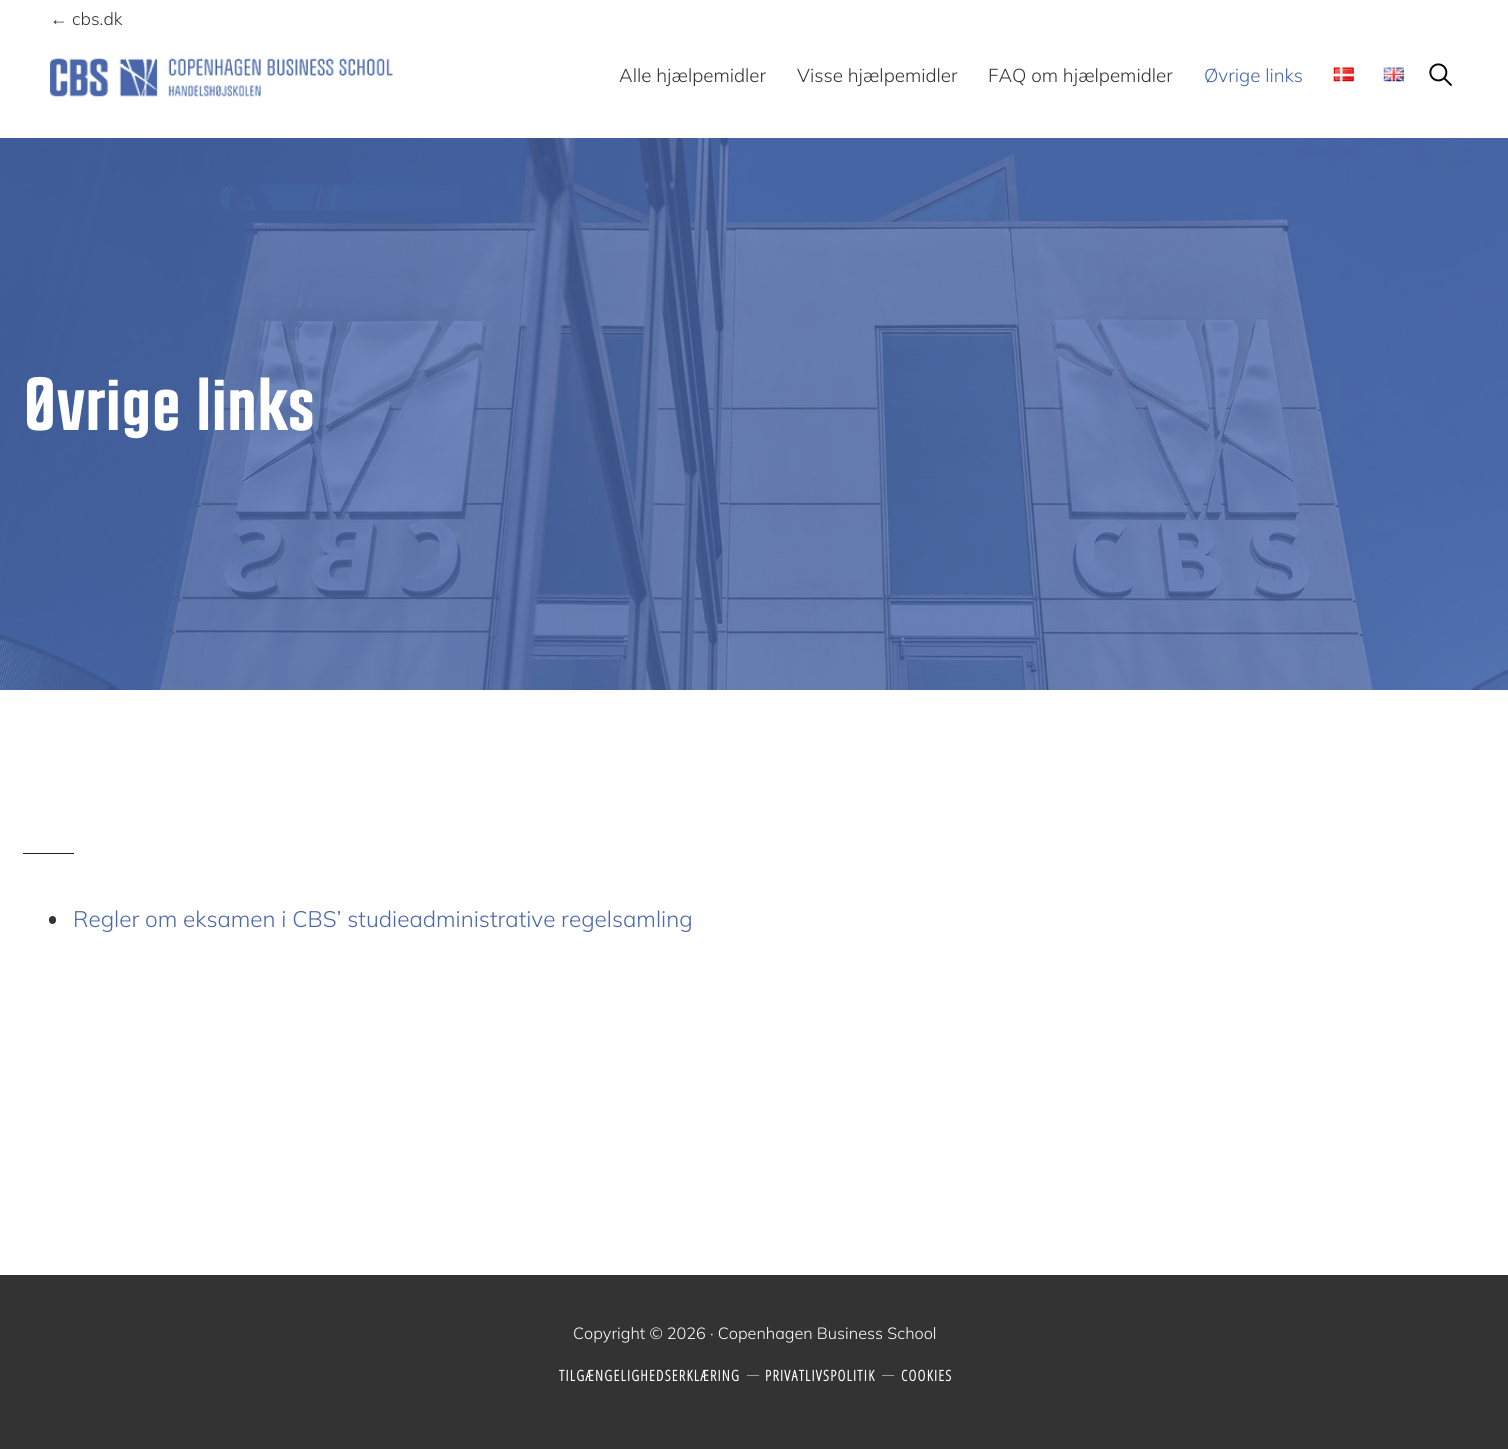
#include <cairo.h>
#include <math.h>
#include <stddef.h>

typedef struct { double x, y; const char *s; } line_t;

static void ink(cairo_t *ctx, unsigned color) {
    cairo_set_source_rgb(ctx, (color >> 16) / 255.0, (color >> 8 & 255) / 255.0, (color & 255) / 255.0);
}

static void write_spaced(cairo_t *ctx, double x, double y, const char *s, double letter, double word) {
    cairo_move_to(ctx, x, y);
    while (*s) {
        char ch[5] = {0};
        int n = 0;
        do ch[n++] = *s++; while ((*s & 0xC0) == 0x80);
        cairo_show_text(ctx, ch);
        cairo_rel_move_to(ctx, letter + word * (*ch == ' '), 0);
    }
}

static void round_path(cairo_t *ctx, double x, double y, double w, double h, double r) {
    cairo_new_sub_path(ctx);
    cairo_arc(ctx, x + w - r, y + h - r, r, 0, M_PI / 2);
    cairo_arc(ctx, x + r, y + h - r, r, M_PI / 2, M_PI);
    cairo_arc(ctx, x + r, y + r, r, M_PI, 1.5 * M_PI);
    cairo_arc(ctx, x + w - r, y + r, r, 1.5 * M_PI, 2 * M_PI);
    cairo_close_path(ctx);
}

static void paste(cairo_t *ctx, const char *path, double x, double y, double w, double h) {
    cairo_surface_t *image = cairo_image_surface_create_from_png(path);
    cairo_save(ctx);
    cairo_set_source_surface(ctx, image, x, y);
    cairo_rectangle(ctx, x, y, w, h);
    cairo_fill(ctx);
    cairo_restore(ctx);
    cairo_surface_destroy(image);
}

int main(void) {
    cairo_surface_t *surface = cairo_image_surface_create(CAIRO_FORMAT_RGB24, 1508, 1449);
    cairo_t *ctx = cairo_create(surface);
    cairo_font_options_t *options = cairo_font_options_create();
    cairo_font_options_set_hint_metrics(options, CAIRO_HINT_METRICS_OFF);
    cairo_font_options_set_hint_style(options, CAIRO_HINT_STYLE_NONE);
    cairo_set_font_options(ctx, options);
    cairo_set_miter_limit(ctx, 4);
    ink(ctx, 0xFFFFFF);
    cairo_paint(ctx);
    cairo_select_font_face(ctx, "Liberation Sans", CAIRO_FONT_SLANT_NORMAL, CAIRO_FONT_WEIGHT_NORMAL);
    cairo_set_font_size(ctx, 17.5);
    ink(ctx, 0x333333);
    cairo_move_to(ctx, 50, 25);
    cairo_show_text(ctx, "←");
    cairo_select_font_face(ctx, "Mulish Light", CAIRO_FONT_SLANT_NORMAL, CAIRO_FONT_WEIGHT_NORMAL);
    cairo_move_to(ctx, 72, 25);
    cairo_show_text(ctx, "cbs.dk");
    paste(ctx, "media/1.png", 50, 58, 343, 39);
    cairo_set_font_size(ctx, 18.75);
    {
        static const line_t items[] = {
            {619, 82, "Alle hjælpemidler"},
            {797, 82, "Visse hjælpemidler"},
            {988, 82, "FAQ om hjælpemidler"},
        };
        for (size_t i = 0; i < sizeof items / sizeof *items; i++) {
            cairo_move_to(ctx, items[i].x, items[i].y);
            cairo_show_text(ctx, items[i].s);
        }
    }
    ink(ctx, 0x4967AA);
    cairo_move_to(ctx, 1204, 82);
    cairo_show_text(ctx, "Øvrige links");
    paste(ctx, "media/2.png", 1333, 67, 21, 15);
    paste(ctx, "media/3.png", 1383, 67, 21, 15);
    paste(ctx, "media/4.png", 1429, 63, 23, 23);
    paste(ctx, "media/5.png", 0, 138, 1508, 552);
    cairo_select_font_face(ctx, "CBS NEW", CAIRO_FONT_SLANT_NORMAL, CAIRO_FONT_WEIGHT_BOLD);
    cairo_set_font_size(ctx, 75);
    ink(ctx, 0xFFFFFF);
    cairo_move_to(ctx, 23, 430);
    cairo_show_text(ctx, "Øvrige links");
    ink(ctx, 0x222222);
    cairo_rectangle(ctx, 23, 853, 51, 1);
    cairo_fill(ctx);
    ink(ctx, 0x333333);
    round_path(ctx, 49, 916, 7, 8, 3.5);
    cairo_fill(ctx);
    cairo_select_font_face(ctx, "Mulish Light", CAIRO_FONT_SLANT_NORMAL, CAIRO_FONT_WEIGHT_NORMAL);
    cairo_set_font_size(ctx, 22.5);
    ink(ctx, 0x4967AA);
    cairo_move_to(ctx, 73, 927);
    cairo_show_text(ctx, "Regler om eksamen i CBS’ studieadministrative regelsamling");
    ink(ctx, 0x333333);
    cairo_rectangle(ctx, 0, 1275, 1508, 174);
    cairo_fill(ctx);
    cairo_set_font_size(ctx, 16.25);
    ink(ctx, 0xFFFFFF);
    cairo_move_to(ctx, 573, 1339);
    cairo_show_text(ctx, "Copyright © 2026 · Copenhagen Business School");
    cairo_select_font_face(ctx, "Open Sans Condensed", CAIRO_FONT_SLANT_NORMAL, CAIRO_FONT_WEIGHT_BOLD);
    cairo_set_font_size(ctx, 15);
    write_spaced(ctx, 559, 1381, "TILGÆNGELIGHEDSERKLÆRING", 1.25, 0);
    cairo_select_font_face(ctx, "Mulish Light", CAIRO_FONT_SLANT_NORMAL, CAIRO_FONT_WEIGHT_NORMAL);
    cairo_set_font_size(ctx, 12);
    cairo_move_to(ctx, 747, 1379);
    cairo_show_text(ctx, "—");
    cairo_select_font_face(ctx, "Open Sans Condensed", CAIRO_FONT_SLANT_NORMAL, CAIRO_FONT_WEIGHT_BOLD);
    cairo_set_font_size(ctx, 15);
    write_spaced(ctx, 765, 1381, "PRIVATLIVSPOLITIK", 1.25, 0);
    cairo_select_font_face(ctx, "Mulish Light", CAIRO_FONT_SLANT_NORMAL, CAIRO_FONT_WEIGHT_NORMAL);
    cairo_set_font_size(ctx, 12);
    cairo_move_to(ctx, 882, 1379);
    cairo_show_text(ctx, "—");
    cairo_select_font_face(ctx, "Open Sans Condensed", CAIRO_FONT_SLANT_NORMAL, CAIRO_FONT_WEIGHT_BOLD);
    cairo_set_font_size(ctx, 15);
    write_spaced(ctx, 901, 1381, "COOKIES", 1.25, 0);
    cairo_surface_write_to_png(surface, "image.png");
    cairo_font_options_destroy(options);
    cairo_destroy(ctx);
    cairo_surface_destroy(surface);
    return 0;
}
